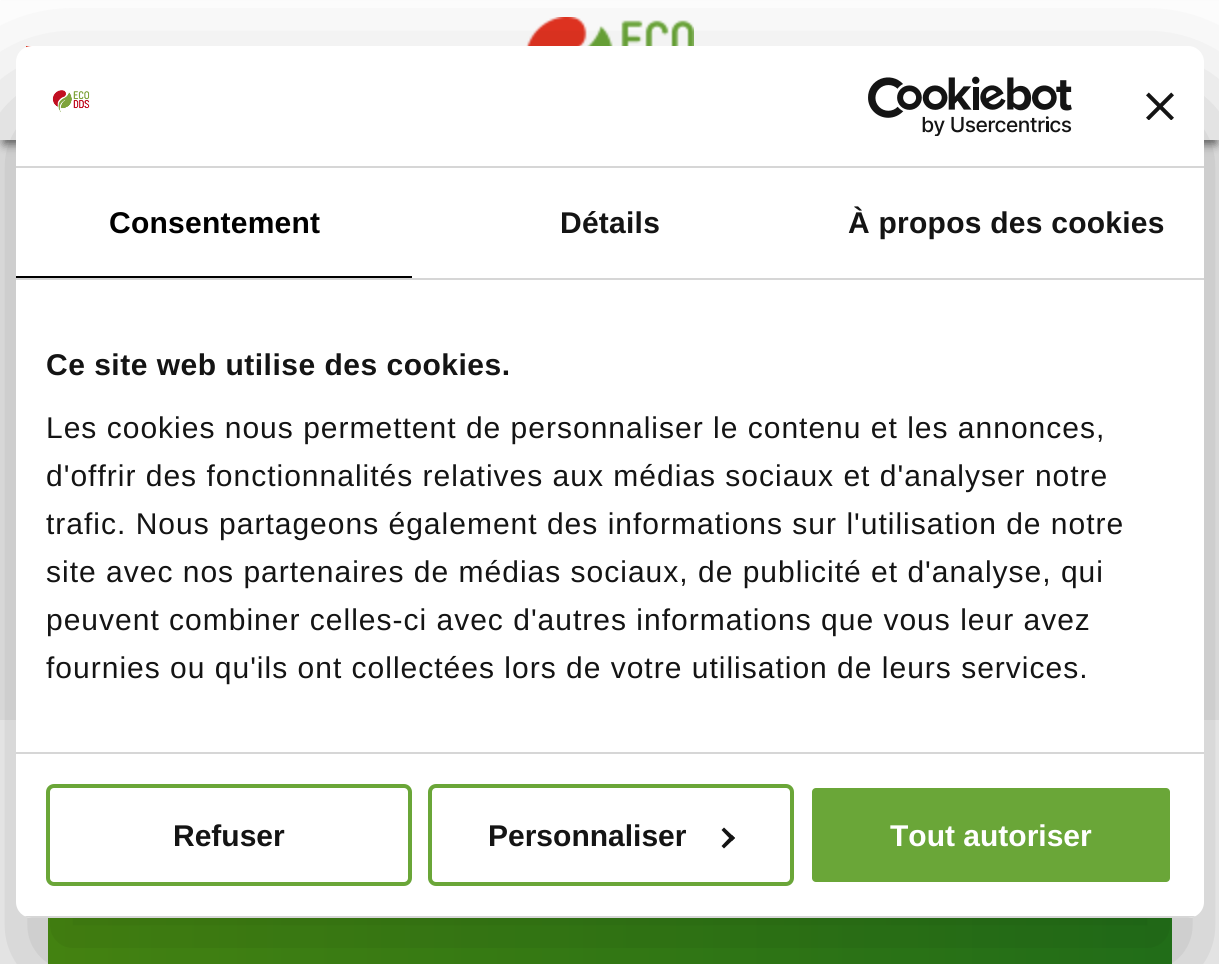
#include <cairo.h>
#include <math.h>
#include <stddef.h>

typedef struct { double x, y; const char *s; } line_t;

static void ink(cairo_t *ctx, unsigned color) {
    cairo_set_source_rgb(ctx, (color >> 16) / 255.0, (color >> 8 & 255) / 255.0, (color & 255) / 255.0);
}

static void write_spaced(cairo_t *ctx, double x, double y, const char *s, double letter, double word) {
    cairo_move_to(ctx, x, y);
    while (*s) {
        char ch[5] = {0};
        int n = 0;
        do ch[n++] = *s++; while ((*s & 0xC0) == 0x80);
        cairo_show_text(ctx, ch);
        cairo_rel_move_to(ctx, letter + word * (*ch == ' '), 0);
    }
}

static void round_path(cairo_t *ctx, double x, double y, double w, double h, double r) {
    cairo_new_sub_path(ctx);
    cairo_arc(ctx, x + w - r, y + h - r, r, 0, M_PI / 2);
    cairo_arc(ctx, x + r, y + h - r, r, M_PI / 2, M_PI);
    cairo_arc(ctx, x + r, y + r, r, M_PI, 1.5 * M_PI);
    cairo_arc(ctx, x + w - r, y + r, r, 1.5 * M_PI, 2 * M_PI);
    cairo_close_path(ctx);
}

static void blur_box(cairo_t *ctx, double x, double y, double w, double h, double r, double blur, double alpha) {
    cairo_push_group_with_content(ctx, CAIRO_CONTENT_ALPHA);
    cairo_set_operator(ctx, CAIRO_OPERATOR_SOURCE);
    for (int i = 15; i >= -15 && fmin(w, h) + blur * i / 3 > 0; i -= 2) {
        double e = blur * i / 6;
        cairo_set_source_rgba(ctx, 0, 0, 0, alpha * erfc((i - 1) / 8.5) / 2);
        round_path(ctx, x - e, y - e, w + 2 * e, h + 2 * e, fmax(0, fmin(r + e + blur * .6, fmin(w, h) / 2 + e)));
        cairo_fill(ctx);
    }
    cairo_pattern_t *soft = cairo_pop_group(ctx);
    cairo_mask(ctx, soft);
    cairo_pattern_destroy(soft);
}

static void paste(cairo_t *ctx, const char *path, double x, double y, double w, double h) {
    cairo_surface_t *image = cairo_image_surface_create_from_png(path);
    cairo_save(ctx);
    cairo_set_source_surface(ctx, image, x, y);
    cairo_rectangle(ctx, x, y, w, h);
    cairo_fill(ctx);
    cairo_restore(ctx);
    cairo_surface_destroy(image);
}

int main(void) {
    cairo_surface_t *surface = cairo_image_surface_create(CAIRO_FORMAT_RGB24, 1219, 964);
    cairo_t *ctx = cairo_create(surface);
    cairo_font_options_t *options = cairo_font_options_create();
    cairo_font_options_set_hint_metrics(options, CAIRO_HINT_METRICS_OFF);
    cairo_font_options_set_hint_style(options, CAIRO_HINT_STYLE_NONE);
    cairo_set_font_options(ctx, options);
    cairo_set_miter_limit(ctx, 4);
    cairo_pattern_t *gradient;
    ink(ctx, 0xFFFFFF);
    cairo_paint(ctx);
    ink(ctx, 0xF2F2F2);
    cairo_rectangle(ctx, 0, 140, 1219, 580);
    cairo_fill(ctx);
    ink(ctx, 0x656565);
    blur_box(ctx, 4, 12, 1212, 132, 0, 5, 1);
    ink(ctx, 0xFFFFFF);
    cairo_rectangle(ctx, 0, 1, 1219, 139);
    cairo_fill(ctx);
    paste(ctx, "media/1.png", 526, 17, 168, 29);
    ink(ctx, 0xE33321);
    cairo_rectangle(ctx, 26, 46, 6, 2);
    cairo_fill(ctx);
    gradient = cairo_pattern_create_linear(48, 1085, 1172, 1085);
    cairo_pattern_add_color_stop_rgba(gradient, 0, 0.325, 0.627, 0.082, 1);
    cairo_pattern_add_color_stop_rgba(gradient, 1, 0.161, 0.525, 0.114, 1);
    cairo_set_source(ctx, gradient);
    cairo_pattern_destroy(gradient);
    cairo_rectangle(ctx, 48, 918, 1124, 46);
    cairo_fill(ctx);
    ink(ctx, 0x000000);
    blur_box(ctx, 16, 110, 1188, 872, 16, 68, 0.3);
    ink(ctx, 0xFFFFFF);
    round_path(ctx, 16, 46, 1188, 872, 16);
    cairo_fill(ctx);
    ink(ctx, 0xD6D6D6);
    cairo_rectangle(ctx, 16, 166, 1188, 2);
    cairo_fill(ctx);
    paste(ctx, "media/2.png", 52, 90, 38, 22);
    paste(ctx, "media/3.png", 868, 76, 204, 60);
    paste(ctx, "media/4.png", 1146, 92, 28, 28);
    cairo_rectangle(ctx, 16, 278, 1188, 2);
    cairo_fill(ctx);
    ink(ctx, 0x000000);
    cairo_rectangle(ctx, 16, 276, 396, 2);
    cairo_fill(ctx);
    cairo_select_font_face(ctx, "Liberation Sans", CAIRO_FONT_SLANT_NORMAL, CAIRO_FONT_WEIGHT_BOLD);
    cairo_set_font_size(ctx, 30);
    write_spaced(ctx, 109, 233, "Consentement", 0.25, 0);
    ink(ctx, 0x141414);
    write_spaced(ctx, 560, 233, "Détails", 0.25, 0);
    write_spaced(ctx, 848, 233, "À propos des cookies", 0.25, 0);
    ink(ctx, 0xD6D6D6);
    cairo_rectangle(ctx, 16, 752, 1188, 2);
    cairo_fill(ctx);
    ink(ctx, 0x141414);
    write_spaced(ctx, 46, 375, "Ce site web utilise des cookies.", 0.5, 0);
    cairo_select_font_face(ctx, "Liberation Sans", CAIRO_FONT_SLANT_NORMAL, CAIRO_FONT_WEIGHT_NORMAL);
    {
        static const line_t items[] = {
            {46, 438, "Les cookies nous permettent de personnaliser le contenu et les annonces,"},
            {46, 486, "d'offrir des fonctionnalités relatives aux médias sociaux et d'analyser notre"},
            {46, 534, "trafic. Nous partageons également des informations sur l'utilisation de notre"},
            {46, 582, "site avec nos partenaires de médias sociaux, de publicité et d'analyse, qui"},
            {46, 630, "peuvent combiner celles-ci avec d'autres informations que vous leur avez"},
            {46, 678, "fournies ou qu'ils ont collectées lors de votre utilisation de leurs services."},
        };
        for (size_t i = 0; i < sizeof items / sizeof *items; i++) {
            write_spaced(ctx, items[i].x, items[i].y, items[i].s, 1, 0);
        }
    }
    cairo_save(ctx);
    round_path(ctx, 16, 46, 1188, 872, 16);
    cairo_clip(ctx);
    ink(ctx, 0xD6D6D6);
    cairo_rectangle(ctx, 16, 916, 1188, 2);
    cairo_fill(ctx);
    cairo_restore(ctx);
    round_path(ctx, 48, 786, 362, 98, 6);
    ink(ctx, 0x6AA638);
    cairo_set_line_width(ctx, 4);
    cairo_stroke(ctx);
    cairo_select_font_face(ctx, "Liberation Sans", CAIRO_FONT_SLANT_NORMAL, CAIRO_FONT_WEIGHT_BOLD);
    ink(ctx, 0x141414);
    cairo_move_to(ctx, 173, 846);
    cairo_show_text(ctx, "Refuser");
    round_path(ctx, 430, 786, 362, 98, 6);
    ink(ctx, 0x6AA638);
    cairo_stroke(ctx);
    ink(ctx, 0x141414);
    cairo_move_to(ctx, 488, 846);
    cairo_show_text(ctx, "Personnaliser");
    cairo_new_path(ctx);
    cairo_move_to(ctx, 724, 827.5);
    cairo_line_to(ctx, 735, 838);
    cairo_line_to(ctx, 732, 841);
    cairo_line_to(ctx, 721.5, 830);
    cairo_close_path(ctx);
    cairo_fill(ctx);
    cairo_new_path(ctx);
    cairo_move_to(ctx, 732, 835);
    cairo_line_to(ctx, 735, 838);
    cairo_line_to(ctx, 724, 848.5);
    cairo_line_to(ctx, 721.5, 846);
    cairo_close_path(ctx);
    cairo_fill(ctx);
    ink(ctx, 0x6AA638);
    round_path(ctx, 810, 786, 362, 98, 6);
    cairo_fill_preserve(ctx);
    ink(ctx, 0xFFFFFF);
    cairo_stroke(ctx);
    cairo_move_to(ctx, 890, 846);
    cairo_show_text(ctx, "Tout autoriser");
    cairo_surface_write_to_png(surface, "image.png");
    cairo_font_options_destroy(options);
    cairo_destroy(ctx);
    cairo_surface_destroy(surface);
    return 0;
}
